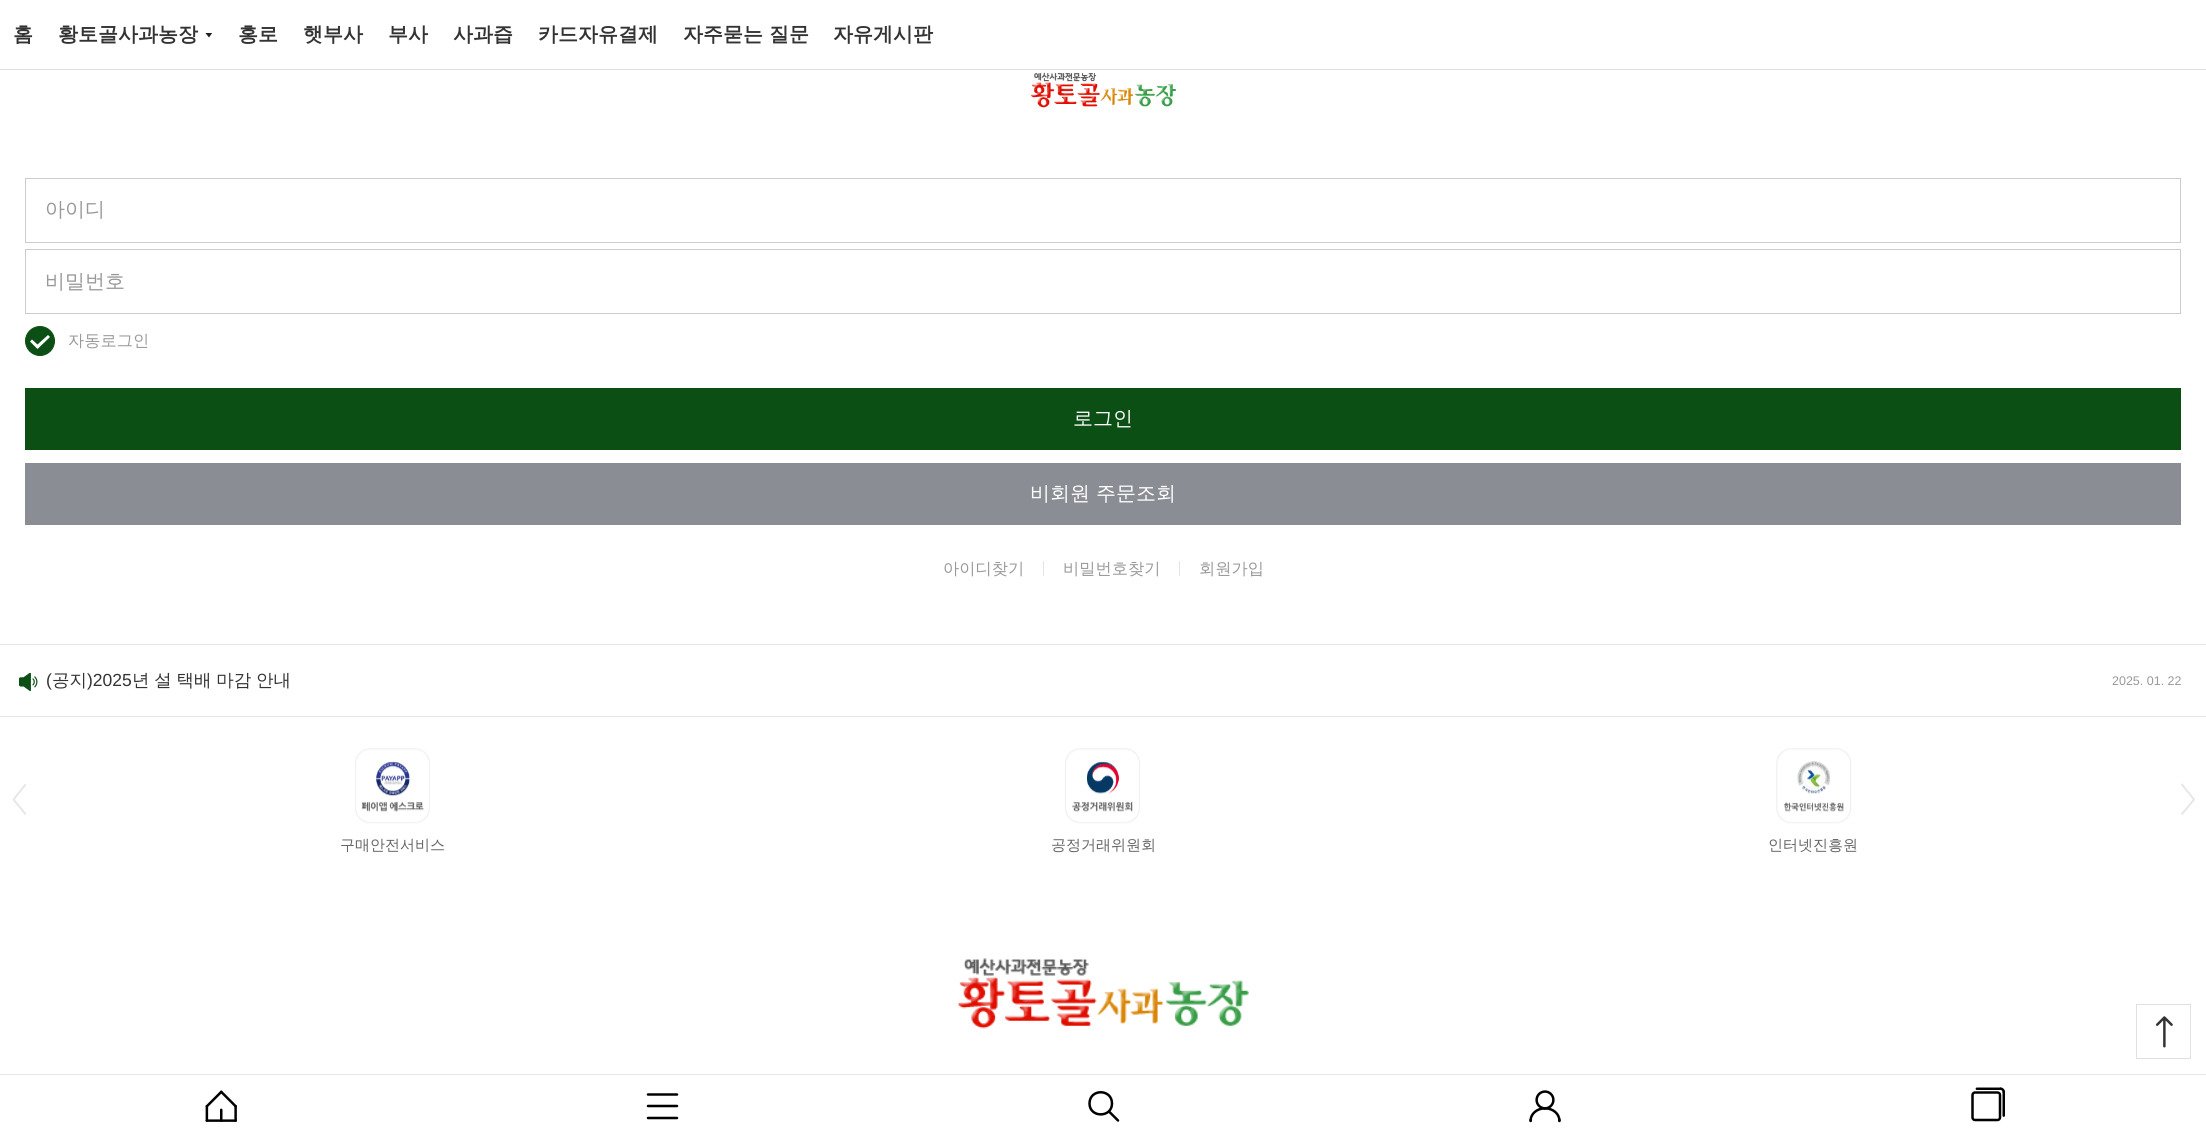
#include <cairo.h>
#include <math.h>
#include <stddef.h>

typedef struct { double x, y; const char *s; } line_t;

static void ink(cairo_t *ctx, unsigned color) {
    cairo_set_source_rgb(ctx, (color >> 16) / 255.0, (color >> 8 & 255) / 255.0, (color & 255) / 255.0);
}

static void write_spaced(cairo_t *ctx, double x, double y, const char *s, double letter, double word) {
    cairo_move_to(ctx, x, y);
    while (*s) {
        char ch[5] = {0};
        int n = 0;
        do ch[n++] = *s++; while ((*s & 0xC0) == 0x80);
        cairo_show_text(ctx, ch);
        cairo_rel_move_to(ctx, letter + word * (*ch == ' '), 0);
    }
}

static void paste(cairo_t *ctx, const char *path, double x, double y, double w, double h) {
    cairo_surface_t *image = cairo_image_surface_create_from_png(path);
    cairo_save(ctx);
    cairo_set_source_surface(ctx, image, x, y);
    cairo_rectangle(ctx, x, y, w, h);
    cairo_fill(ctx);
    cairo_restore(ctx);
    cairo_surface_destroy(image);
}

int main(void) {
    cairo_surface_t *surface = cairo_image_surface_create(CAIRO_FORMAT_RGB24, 2206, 1140);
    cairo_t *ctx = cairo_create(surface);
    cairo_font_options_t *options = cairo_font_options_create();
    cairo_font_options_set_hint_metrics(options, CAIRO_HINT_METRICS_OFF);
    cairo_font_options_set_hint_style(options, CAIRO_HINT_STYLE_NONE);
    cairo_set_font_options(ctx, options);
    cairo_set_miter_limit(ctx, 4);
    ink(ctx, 0xFFFFFF);
    cairo_paint(ctx);
    cairo_select_font_face(ctx, "WenQuanYi Zen Hei", CAIRO_FONT_SLANT_NORMAL, CAIRO_FONT_WEIGHT_BOLD);
    cairo_set_font_size(ctx, 20);
    ink(ctx, 0x333333);
    cairo_move_to(ctx, 13, 41);
    cairo_show_text(ctx, "홈");
    cairo_move_to(ctx, 58, 41);
    cairo_show_text(ctx, "황토골사과농장");
    cairo_save(ctx);
    cairo_rectangle(ctx, 205, 33, 8, 5);
    cairo_clip(ctx);
    ink(ctx, 0x221E1F);
    cairo_new_path(ctx);
    cairo_move_to(ctx, 209, 37.5);
    cairo_line_to(ctx, 212.5, 32.5);
    cairo_line_to(ctx, 205, 32.5);
    cairo_close_path(ctx);
    cairo_fill(ctx);
    cairo_restore(ctx);
    {
        static const line_t items[] = {
            {238, 41, "홍로"},
            {303, 41, "햇부사"},
            {388, 41, "부사"},
            {453, 41, "사과즙"},
            {538, 41, "카드자유결제"},
            {683, 41, "자주묻는 질문"},
            {833, 41, "자유게시판"},
        };
        for (size_t i = 0; i < sizeof items / sizeof *items; i++) {
            cairo_move_to(ctx, items[i].x, items[i].y);
            cairo_show_text(ctx, items[i].s);
        }
    }
    ink(ctx, 0xE0E0E0);
    cairo_rectangle(ctx, 0, 69, 2206, 1);
    cairo_fill(ctx);
    paste(ctx, "media/1.png", 1030, 72, 147, 36);
    cairo_rectangle(ctx, 25.5, 178.5, 2155, 64);
    ink(ctx, 0xCCCCCC);
    cairo_set_line_width(ctx, 1);
    cairo_stroke(ctx);
    cairo_select_font_face(ctx, "WenQuanYi Zen Hei Medium", CAIRO_FONT_SLANT_NORMAL, CAIRO_FONT_WEIGHT_NORMAL);
    ink(ctx, 0x999999);
    cairo_move_to(ctx, 45, 216);
    cairo_show_text(ctx, "아이디");
    cairo_rectangle(ctx, 25.5, 249.5, 2155, 64);
    ink(ctx, 0xCCCCCC);
    cairo_stroke(ctx);
    ink(ctx, 0x999999);
    cairo_move_to(ctx, 45, 288);
    cairo_show_text(ctx, "비밀번호");
    ink(ctx, 0x0C4F15);
    cairo_new_path(ctx);
    cairo_arc(ctx, 40, 341, 14.5, 0, 2 * M_PI);
    cairo_fill_preserve(ctx);
    cairo_stroke(ctx);
    ink(ctx, 0xFFFFFF);
    cairo_new_path(ctx);
    cairo_move_to(ctx, 37.5, 344.5);
    cairo_line_to(ctx, 32, 339.5);
    cairo_line_to(ctx, 30, 341.5);
    cairo_line_to(ctx, 37.5, 349);
    cairo_line_to(ctx, 50, 337);
    cairo_line_to(ctx, 48, 335);
    cairo_close_path(ctx);
    cairo_fill(ctx);
    cairo_set_font_size(ctx, 16.25);
    ink(ctx, 0x999999);
    cairo_move_to(ctx, 68, 346);
    cairo_show_text(ctx, "자동로그인");
    ink(ctx, 0x0C4F15);
    cairo_rectangle(ctx, 25, 388, 2156, 62);
    cairo_fill(ctx);
    cairo_set_font_size(ctx, 20);
    ink(ctx, 0xFFFFFF);
    cairo_move_to(ctx, 1073, 425);
    cairo_show_text(ctx, "로그인");
    ink(ctx, 0x8A8D93);
    cairo_rectangle(ctx, 25, 463, 2156, 62);
    cairo_fill(ctx);
    ink(ctx, 0xFFFFFF);
    cairo_move_to(ctx, 1030, 500);
    cairo_show_text(ctx, "비회원 주문조회");
    cairo_set_font_size(ctx, 16.25);
    ink(ctx, 0x999999);
    cairo_move_to(ctx, 943, 574);
    cairo_show_text(ctx, "아이디찾기");
    ink(ctx, 0xE4E4E4);
    cairo_rectangle(ctx, 1043, 561, 1, 15);
    cairo_fill(ctx);
    ink(ctx, 0x999999);
    cairo_move_to(ctx, 1063, 574);
    cairo_show_text(ctx, "비밀번호찾기");
    ink(ctx, 0xE4E4E4);
    cairo_rectangle(ctx, 1179, 561, 1, 15);
    cairo_fill(ctx);
    ink(ctx, 0x999999);
    cairo_move_to(ctx, 1199, 574);
    cairo_show_text(ctx, "회원가입");
    ink(ctx, 0xE6E6E6);
    cairo_rectangle(ctx, 0, 644, 2206, 1);
    cairo_fill(ctx);
    cairo_rectangle(ctx, 0, 716, 2206, 1);
    cairo_fill(ctx);
    paste(ctx, "media/2.png", 19, 673, 19, 18);
    cairo_select_font_face(ctx, "Liberation Sans", CAIRO_FONT_SLANT_NORMAL, CAIRO_FONT_WEIGHT_NORMAL);
    cairo_set_font_size(ctx, 17.5);
    ink(ctx, 0x333333);
    cairo_move_to(ctx, 46, 686);
    cairo_show_text(ctx, "(");
    cairo_select_font_face(ctx, "WenQuanYi Zen Hei Medium", CAIRO_FONT_SLANT_NORMAL, CAIRO_FONT_WEIGHT_NORMAL);
    cairo_move_to(ctx, 52, 686);
    cairo_show_text(ctx, "공지");
    cairo_select_font_face(ctx, "Liberation Sans", CAIRO_FONT_SLANT_NORMAL, CAIRO_FONT_WEIGHT_NORMAL);
    cairo_move_to(ctx, 87, 686);
    cairo_show_text(ctx, ")2025");
    cairo_select_font_face(ctx, "WenQuanYi Zen Hei Medium", CAIRO_FONT_SLANT_NORMAL, CAIRO_FONT_WEIGHT_NORMAL);
    write_spaced(ctx, 132, 686, "년 설 택배 마감 안내", 0, -0.5);
    cairo_select_font_face(ctx, "Liberation Sans", CAIRO_FONT_SLANT_NORMAL, CAIRO_FONT_WEIGHT_NORMAL);
    cairo_set_font_size(ctx, 12.5);
    ink(ctx, 0x999999);
    cairo_move_to(ctx, 2112, 685);
    cairo_show_text(ctx, "2025. 01. 22");
    cairo_save(ctx);
    cairo_rectangle(ctx, 13, 784, 13, 31);
    cairo_clip(ctx);
    cairo_new_path(ctx);
    cairo_move_to(ctx, 25.5, 784.5);
    cairo_line_to(ctx, 13.5, 799.5);
    cairo_move_to(ctx, 25.5, 814);
    cairo_line_to(ctx, 13.5, 799.5);
    ink(ctx, 0xE6E6E6);
    cairo_set_line_width(ctx, 1.9);
    cairo_set_line_cap(ctx, CAIRO_LINE_CAP_ROUND);
    cairo_stroke(ctx);
    cairo_restore(ctx);
    cairo_new_path(ctx);
    cairo_move_to(ctx, 2182, 784.5);
    cairo_line_to(ctx, 2194, 799.5);
    cairo_move_to(ctx, 2182, 814);
    cairo_line_to(ctx, 2194, 799.5);
    ink(ctx, 0xE6E6E6);
    cairo_set_line_width(ctx, 1.9);
    cairo_set_line_cap(ctx, CAIRO_LINE_CAP_ROUND);
    cairo_stroke(ctx);
    paste(ctx, "media/3.png", 355, 748, 75, 76);
    cairo_select_font_face(ctx, "WenQuanYi Zen Hei Medium", CAIRO_FONT_SLANT_NORMAL, CAIRO_FONT_WEIGHT_NORMAL);
    cairo_set_font_size(ctx, 15);
    ink(ctx, 0x666666);
    cairo_move_to(ctx, 340, 850);
    cairo_show_text(ctx, "구매안전서비스");
    paste(ctx, "media/4.png", 1065, 748, 75, 76);
    cairo_move_to(ctx, 1051, 850);
    cairo_show_text(ctx, "공정거래위원회");
    paste(ctx, "media/5.png", 1776, 748, 76, 76);
    cairo_move_to(ctx, 1768, 850);
    cairo_show_text(ctx, "인터넷진흥원");
    paste(ctx, "media/6.png", 957, 958, 292, 71);
    cairo_rectangle(ctx, 2136.5, 1004.5, 54, 54);
    ink(ctx, 0xE0E0E0);
    cairo_set_line_width(ctx, 1);
    cairo_set_line_cap(ctx, CAIRO_LINE_CAP_BUTT);
    cairo_stroke(ctx);
    paste(ctx, "media/7.png", 2155, 1016, 18, 32);
    ink(ctx, 0xE6E6E6);
    cairo_rectangle(ctx, 0, 1074, 2206, 1);
    cairo_fill(ctx);
    paste(ctx, "media/8.png", 205, 1090, 32, 32);
    cairo_new_path(ctx);
    cairo_move_to(ctx, 677, 1118);
    cairo_line_to(ctx, 648, 1118);
    cairo_move_to(ctx, 677, 1106);
    cairo_line_to(ctx, 648, 1106);
    cairo_move_to(ctx, 677, 1094.5);
    cairo_line_to(ctx, 648, 1094.5);
    ink(ctx, 0x000000);
    cairo_set_line_width(ctx, 2.5);
    cairo_set_line_cap(ctx, CAIRO_LINE_CAP_ROUND);
    cairo_stroke(ctx);
    cairo_new_path(ctx);
    cairo_move_to(ctx, 1112, 1103.5);
    cairo_curve_to(ctx, 1112, 1118, 1089.5, 1118, 1089.5, 1103.5);
    cairo_curve_to(ctx, 1089.5, 1088.5, 1112, 1088.5, 1112, 1103.5);
    cairo_close_path(ctx);
    cairo_move_to(ctx, 1109, 1111.5);
    cairo_line_to(ctx, 1118, 1120.5);
    cairo_stroke(ctx);
    paste(ctx, "media/9.png", 1529, 1090, 32, 33);
    paste(ctx, "media/10.png", 1971, 1087, 34, 35);
    cairo_surface_write_to_png(surface, "image.png");
    cairo_font_options_destroy(options);
    cairo_destroy(ctx);
    cairo_surface_destroy(surface);
    return 0;
}
